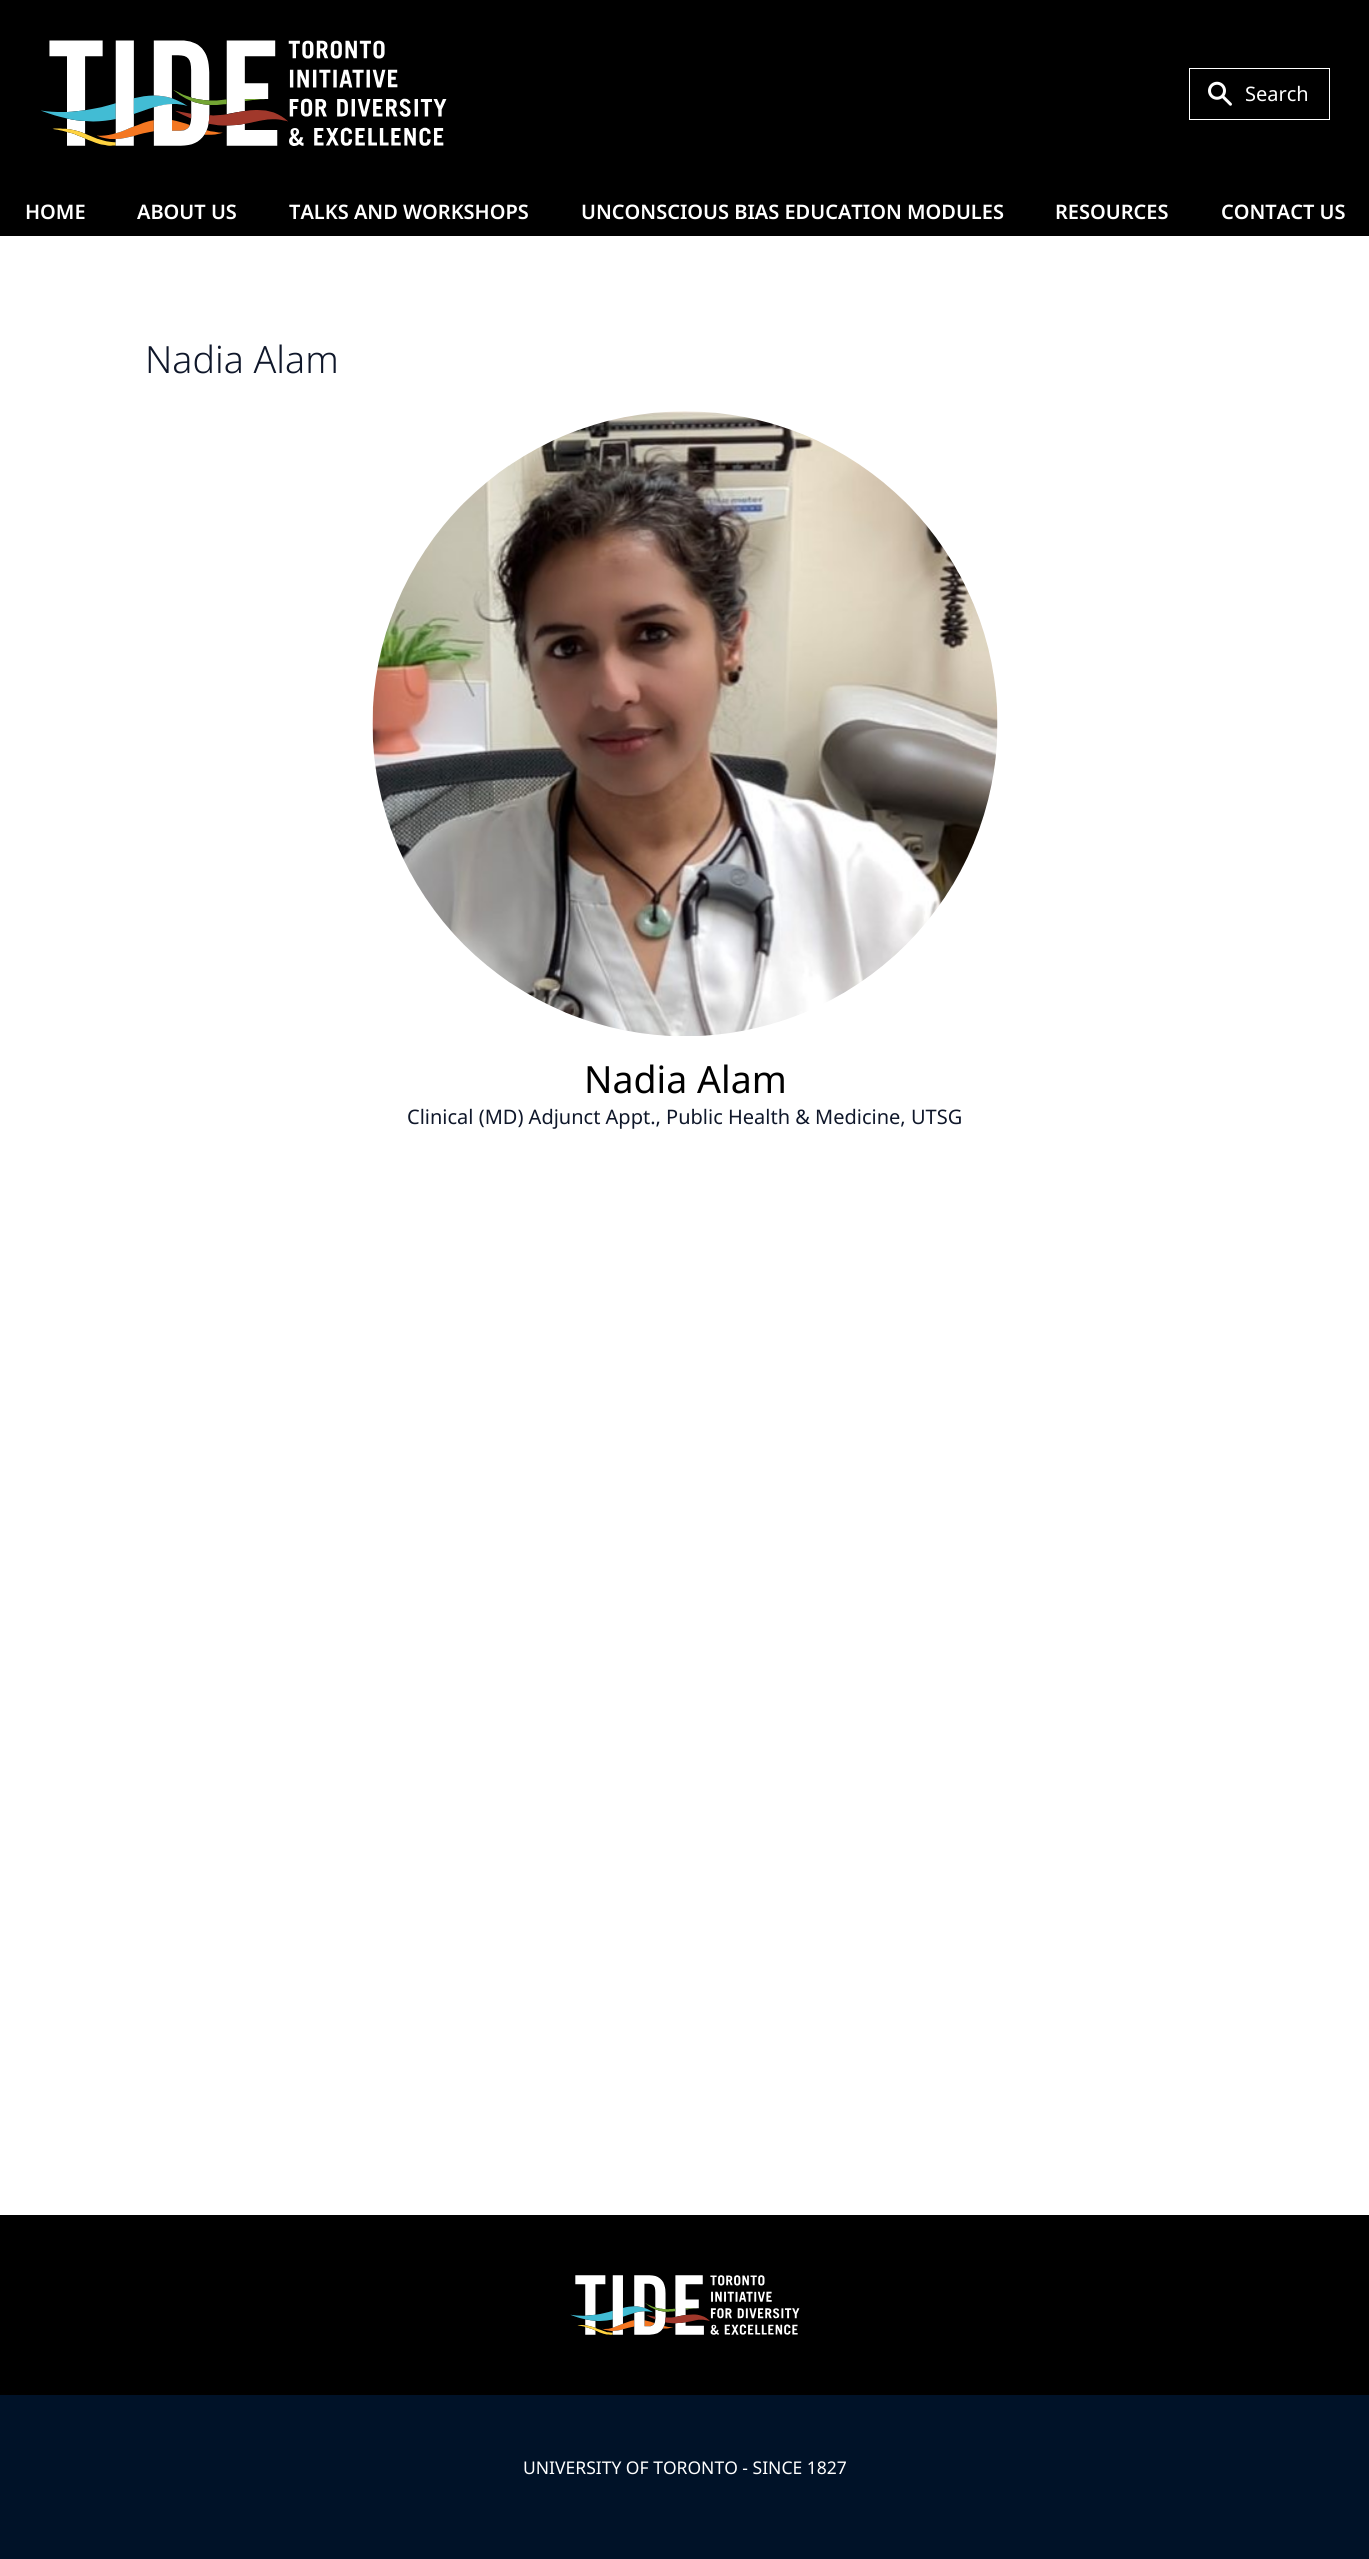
#include <cairo.h>
#include <math.h>
#include <stddef.h>

typedef struct { double x, y; const char *s; } line_t;

static void ink(cairo_t *ctx, unsigned color) {
    cairo_set_source_rgb(ctx, (color >> 16) / 255.0, (color >> 8 & 255) / 255.0, (color & 255) / 255.0);
}

static void paste(cairo_t *ctx, const char *path, double x, double y, double w, double h) {
    cairo_surface_t *image = cairo_image_surface_create_from_png(path);
    cairo_save(ctx);
    cairo_set_source_surface(ctx, image, x, y);
    cairo_rectangle(ctx, x, y, w, h);
    cairo_fill(ctx);
    cairo_restore(ctx);
    cairo_surface_destroy(image);
}

int main(void) {
    cairo_surface_t *surface = cairo_image_surface_create(CAIRO_FORMAT_RGB24, 1369, 2559);
    cairo_t *ctx = cairo_create(surface);
    cairo_font_options_t *options = cairo_font_options_create();
    cairo_font_options_set_hint_metrics(options, CAIRO_HINT_METRICS_OFF);
    cairo_font_options_set_hint_style(options, CAIRO_HINT_STYLE_NONE);
    cairo_set_font_options(ctx, options);
    cairo_set_miter_limit(ctx, 4);
    ink(ctx, 0xFFFFFF);
    cairo_paint(ctx);
    ink(ctx, 0x000000);
    cairo_rectangle(ctx, 0, 0, 1369, 236);
    cairo_fill(ctx);
    paste(ctx, "media/1.png", 41, 40, 406, 106);
    cairo_rectangle(ctx, 1189.5, 68.5, 140, 51);
    ink(ctx, 0xFFFFFF);
    cairo_set_line_width(ctx, 1);
    cairo_stroke(ctx);
    paste(ctx, "media/2.png", 1208, 81, 24, 25);
    cairo_select_font_face(ctx, "Noto Sans", CAIRO_FONT_SLANT_NORMAL, CAIRO_FONT_WEIGHT_NORMAL);
    cairo_set_font_size(ctx, 20);
    cairo_move_to(ctx, 1245, 101);
    cairo_show_text(ctx, "Search");
    cairo_select_font_face(ctx, "Noto Sans SemiBold", CAIRO_FONT_SLANT_NORMAL, CAIRO_FONT_WEIGHT_NORMAL);
    {
        static const line_t items[] = {
            {25, 219, "HOME"},
            {137, 219, "ABOUT US"},
            {289, 219, "TALKS AND WORKSHOPS"},
            {581, 219, "UNCONSCIOUS BIAS EDUCATION MODULES"},
            {1055, 219, "RESOURCES"},
            {1221, 219, "CONTACT US"},
        };
        for (size_t i = 0; i < sizeof items / sizeof *items; i++) {
            cairo_move_to(ctx, items[i].x, items[i].y);
            cairo_show_text(ctx, items[i].s);
        }
    }
    cairo_select_font_face(ctx, "Noto Sans Light", CAIRO_FONT_SLANT_NORMAL, CAIRO_FONT_WEIGHT_NORMAL);
    cairo_set_font_size(ctx, 37.5);
    ink(ctx, 0x0F172A);
    cairo_move_to(ctx, 145, 373);
    cairo_show_text(ctx, "Nadia Alam");
    paste(ctx, "media/3.png", 372, 411, 626, 625);
    cairo_select_font_face(ctx, "Noto Sans", CAIRO_FONT_SLANT_NORMAL, CAIRO_FONT_WEIGHT_NORMAL);
    ink(ctx, 0x000000);
    cairo_move_to(ctx, 584, 1093);
    cairo_show_text(ctx, "Nadia Alam");
    cairo_set_font_size(ctx, 20);
    ink(ctx, 0x0F172A);
    cairo_move_to(ctx, 407, 1124);
    cairo_show_text(ctx, "Clinical (MD) Adjunct Appt., Public Health & Medicine, UTSG");
    ink(ctx, 0x000000);
    cairo_rectangle(ctx, 0, 2215, 1369, 180);
    cairo_fill(ctx);
    paste(ctx, "media/4.png", 570, 2275, 230, 60);
    ink(ctx, 0x001228);
    cairo_rectangle(ctx, 0, 2395, 1369, 164);
    cairo_fill(ctx);
    cairo_set_font_size(ctx, 17.5);
    ink(ctx, 0xFFFFFF);
    cairo_move_to(ctx, 523, 2474);
    cairo_show_text(ctx, "UNIVERSITY OF TORONTO - SINCE 1827");
    cairo_surface_write_to_png(surface, "image.png");
    cairo_font_options_destroy(options);
    cairo_destroy(ctx);
    cairo_surface_destroy(surface);
    return 0;
}
